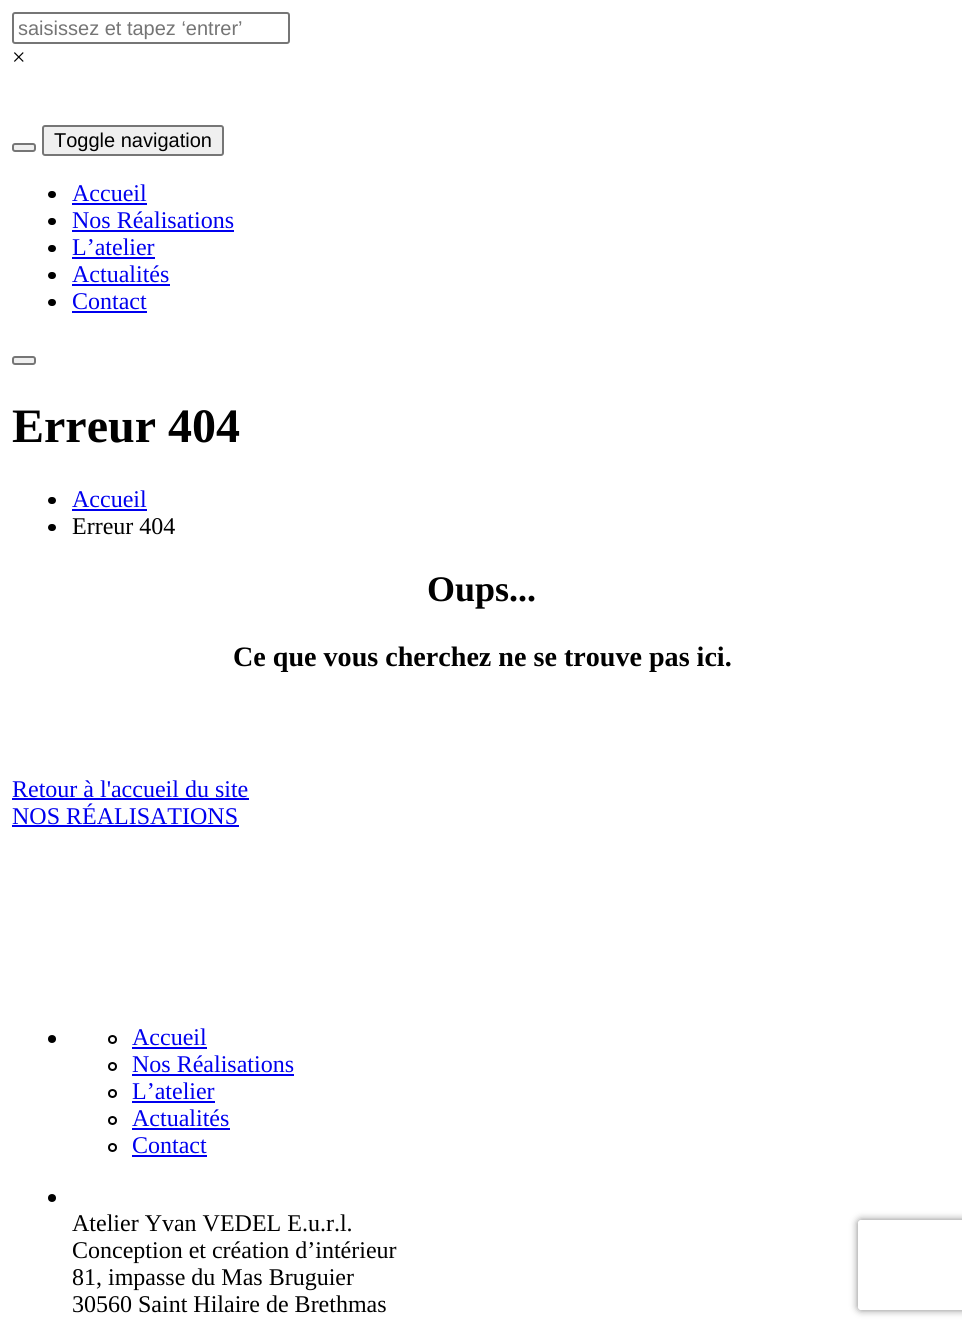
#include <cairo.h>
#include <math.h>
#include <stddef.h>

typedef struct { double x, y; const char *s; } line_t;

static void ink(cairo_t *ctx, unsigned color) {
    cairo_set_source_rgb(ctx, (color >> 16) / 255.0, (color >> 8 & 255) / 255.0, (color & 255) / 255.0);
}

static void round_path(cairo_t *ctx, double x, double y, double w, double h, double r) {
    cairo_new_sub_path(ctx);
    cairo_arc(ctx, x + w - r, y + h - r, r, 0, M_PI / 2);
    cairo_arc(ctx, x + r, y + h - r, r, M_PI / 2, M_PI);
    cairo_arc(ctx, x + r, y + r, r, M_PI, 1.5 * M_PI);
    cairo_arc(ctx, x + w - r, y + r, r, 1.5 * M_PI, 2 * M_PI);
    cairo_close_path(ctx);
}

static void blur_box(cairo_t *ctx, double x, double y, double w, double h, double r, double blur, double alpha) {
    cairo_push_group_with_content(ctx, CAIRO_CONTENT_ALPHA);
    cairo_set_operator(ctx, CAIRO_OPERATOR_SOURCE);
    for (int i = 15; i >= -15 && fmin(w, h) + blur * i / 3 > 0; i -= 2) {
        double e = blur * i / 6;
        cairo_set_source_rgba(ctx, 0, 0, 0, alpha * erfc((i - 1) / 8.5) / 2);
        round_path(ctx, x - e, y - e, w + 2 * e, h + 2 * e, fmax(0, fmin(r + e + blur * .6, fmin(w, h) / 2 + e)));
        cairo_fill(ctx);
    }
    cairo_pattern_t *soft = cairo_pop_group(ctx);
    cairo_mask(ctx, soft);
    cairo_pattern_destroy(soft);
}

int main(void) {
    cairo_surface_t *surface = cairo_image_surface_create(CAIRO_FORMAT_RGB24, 962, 1330);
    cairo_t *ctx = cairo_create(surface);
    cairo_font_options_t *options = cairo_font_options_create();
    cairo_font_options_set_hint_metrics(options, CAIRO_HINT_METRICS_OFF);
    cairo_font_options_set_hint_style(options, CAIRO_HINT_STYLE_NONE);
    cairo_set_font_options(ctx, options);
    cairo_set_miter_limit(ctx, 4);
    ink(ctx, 0xFFFFFF);
    cairo_paint(ctx);
    round_path(ctx, 13, 13, 276, 30, 2);
    ink(ctx, 0x767676);
    cairo_stroke(ctx);
    cairo_select_font_face(ctx, "Liberation Sans", CAIRO_FONT_SLANT_NORMAL, CAIRO_FONT_WEIGHT_NORMAL);
    cairo_set_font_size(ctx, 20);
    ink(ctx, 0x757575);
    cairo_move_to(ctx, 18, 35);
    cairo_show_text(ctx, "saisissez et tapez ‘entrer’");
    cairo_select_font_face(ctx, "Liberation Serif", CAIRO_FONT_SLANT_NORMAL, CAIRO_FONT_WEIGHT_NORMAL);
    cairo_set_font_size(ctx, 24);
    ink(ctx, 0x000000);
    cairo_move_to(ctx, 12, 65);
    cairo_show_text(ctx, "×");
    ink(ctx, 0xEFEFEF);
    round_path(ctx, 13, 144, 22, 7, 2);
    cairo_fill_preserve(ctx);
    ink(ctx, 0x767676);
    cairo_stroke(ctx);
    ink(ctx, 0xEFEFEF);
    round_path(ctx, 43, 126, 180, 29, 2);
    cairo_fill_preserve(ctx);
    ink(ctx, 0x767676);
    cairo_stroke(ctx);
    cairo_select_font_face(ctx, "Liberation Sans", CAIRO_FONT_SLANT_NORMAL, CAIRO_FONT_WEIGHT_NORMAL);
    cairo_set_font_size(ctx, 20);
    ink(ctx, 0x000000);
    cairo_move_to(ctx, 54, 147);
    cairo_show_text(ctx, "Toggle navigation");
    round_path(ctx, 48, 191, 8, 7, 3.5);
    cairo_fill(ctx);
    cairo_select_font_face(ctx, "Liberation Serif", CAIRO_FONT_SLANT_NORMAL, CAIRO_FONT_WEIGHT_NORMAL);
    cairo_set_font_size(ctx, 24);
    ink(ctx, 0x0000EE);
    cairo_move_to(ctx, 72, 201);
    cairo_show_text(ctx, "Accueil");
    cairo_rectangle(ctx, 72, 203, 75, 2);
    cairo_fill(ctx);
    ink(ctx, 0x000000);
    round_path(ctx, 48, 218, 8, 7, 3.5);
    cairo_fill(ctx);
    ink(ctx, 0x0000EE);
    cairo_move_to(ctx, 72, 228);
    cairo_show_text(ctx, "Nos Réalisations");
    cairo_rectangle(ctx, 72, 230, 162, 2);
    cairo_fill(ctx);
    ink(ctx, 0x000000);
    round_path(ctx, 48, 245, 8, 7, 3.5);
    cairo_fill(ctx);
    ink(ctx, 0x0000EE);
    cairo_move_to(ctx, 72, 255);
    cairo_show_text(ctx, "L’atelier");
    cairo_rectangle(ctx, 72, 257, 83, 2);
    cairo_fill(ctx);
    ink(ctx, 0x000000);
    round_path(ctx, 48, 272, 8, 7, 3.5);
    cairo_fill(ctx);
    ink(ctx, 0x0000EE);
    cairo_move_to(ctx, 72, 282);
    cairo_show_text(ctx, "Actualités");
    cairo_rectangle(ctx, 72, 284, 98, 2);
    cairo_fill(ctx);
    ink(ctx, 0x000000);
    round_path(ctx, 48, 299, 8, 7, 3.5);
    cairo_fill(ctx);
    ink(ctx, 0x0000EE);
    cairo_move_to(ctx, 72, 309);
    cairo_show_text(ctx, "Contact");
    cairo_rectangle(ctx, 72, 311, 75, 2);
    cairo_fill(ctx);
    ink(ctx, 0xEFEFEF);
    round_path(ctx, 13, 357, 22, 7, 2);
    cairo_fill_preserve(ctx);
    ink(ctx, 0x767676);
    cairo_stroke(ctx);
    cairo_select_font_face(ctx, "Liberation Serif", CAIRO_FONT_SLANT_NORMAL, CAIRO_FONT_WEIGHT_BOLD);
    cairo_set_font_size(ctx, 48);
    ink(ctx, 0x000000);
    cairo_move_to(ctx, 12, 442);
    cairo_show_text(ctx, "Erreur 404");
    round_path(ctx, 48, 497, 8, 7, 3.5);
    cairo_fill(ctx);
    cairo_select_font_face(ctx, "Liberation Serif", CAIRO_FONT_SLANT_NORMAL, CAIRO_FONT_WEIGHT_NORMAL);
    cairo_set_font_size(ctx, 24);
    ink(ctx, 0x0000EE);
    cairo_move_to(ctx, 72, 507);
    cairo_show_text(ctx, "Accueil");
    cairo_rectangle(ctx, 72, 509, 75, 2);
    cairo_fill(ctx);
    ink(ctx, 0x000000);
    round_path(ctx, 48, 524, 8, 7, 3.5);
    cairo_fill(ctx);
    cairo_move_to(ctx, 72, 534);
    cairo_show_text(ctx, "Erreur 404");
    cairo_select_font_face(ctx, "Liberation Serif", CAIRO_FONT_SLANT_NORMAL, CAIRO_FONT_WEIGHT_BOLD);
    cairo_set_font_size(ctx, 36);
    cairo_move_to(ctx, 427, 601);
    cairo_show_text(ctx, "Oups...");
    cairo_set_font_size(ctx, 28.1);
    cairo_move_to(ctx, 233, 666);
    cairo_show_text(ctx, "Ce que vous cherchez ne se trouve pas ici.");
    cairo_select_font_face(ctx, "Liberation Serif", CAIRO_FONT_SLANT_NORMAL, CAIRO_FONT_WEIGHT_NORMAL);
    cairo_set_font_size(ctx, 24);
    ink(ctx, 0x0000EE);
    cairo_move_to(ctx, 12, 797);
    cairo_show_text(ctx, "Retour à l'accueil du site");
    cairo_rectangle(ctx, 12, 798, 237, 2);
    cairo_fill(ctx);
    cairo_move_to(ctx, 12, 824);
    cairo_show_text(ctx, "NOS RÉALISATIONS");
    cairo_rectangle(ctx, 12, 825, 227, 2);
    cairo_fill(ctx);
    ink(ctx, 0x000000);
    cairo_arc(ctx, 52, 1039, 4, 0, 2 * M_PI);
    cairo_fill(ctx);
    cairo_arc(ctx, 112.5, 1039.5, 3.5, 0, 2 * M_PI);
    cairo_stroke(ctx);
    ink(ctx, 0x0000EE);
    cairo_move_to(ctx, 132, 1045);
    cairo_show_text(ctx, "Accueil");
    cairo_rectangle(ctx, 132, 1047, 75, 2);
    cairo_fill(ctx);
    cairo_arc(ctx, 112.5, 1066.5, 3.5, 0, 2 * M_PI);
    ink(ctx, 0x000000);
    cairo_stroke(ctx);
    ink(ctx, 0x0000EE);
    cairo_move_to(ctx, 132, 1072);
    cairo_show_text(ctx, "Nos Réalisations");
    cairo_rectangle(ctx, 132, 1074, 162, 2);
    cairo_fill(ctx);
    cairo_arc(ctx, 112.5, 1093.5, 3.5, 0, 2 * M_PI);
    ink(ctx, 0x000000);
    cairo_stroke(ctx);
    ink(ctx, 0x0000EE);
    cairo_move_to(ctx, 132, 1099);
    cairo_show_text(ctx, "L’atelier");
    cairo_rectangle(ctx, 132, 1101, 83, 2);
    cairo_fill(ctx);
    cairo_arc(ctx, 112.5, 1120.5, 3.5, 0, 2 * M_PI);
    ink(ctx, 0x000000);
    cairo_stroke(ctx);
    ink(ctx, 0x0000EE);
    cairo_move_to(ctx, 132, 1126);
    cairo_show_text(ctx, "Actualités");
    cairo_rectangle(ctx, 132, 1128, 98, 2);
    cairo_fill(ctx);
    cairo_arc(ctx, 112.5, 1147.5, 3.5, 0, 2 * M_PI);
    ink(ctx, 0x000000);
    cairo_stroke(ctx);
    ink(ctx, 0x0000EE);
    cairo_move_to(ctx, 132, 1153);
    cairo_show_text(ctx, "Contact");
    cairo_rectangle(ctx, 132, 1155, 75, 2);
    cairo_fill(ctx);
    ink(ctx, 0x000000);
    cairo_arc(ctx, 52, 1198, 4, 0, 2 * M_PI);
    cairo_fill(ctx);
    {
        static const line_t items[] = {
            {72, 1231, "Atelier Yvan VEDEL E.u.r.l."},
            {72, 1258, "Conception et création d’intérieur"},
            {72, 1285, "81, impasse du Mas Bruguier"},
            {72, 1312, "30560 Saint Hilaire de Brethmas"},
        };
        for (size_t i = 0; i < sizeof items / sizeof *items; i++) {
            cairo_move_to(ctx, items[i].x, items[i].y);
            cairo_show_text(ctx, items[i].s);
        }
    }
    cairo_save(ctx);
    cairo_set_fill_rule(ctx, CAIRO_FILL_RULE_EVEN_ODD);
    cairo_new_path(ctx);
    cairo_move_to(ctx, 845, 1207);
    cairo_line_to(ctx, 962, 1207);
    cairo_line_to(ctx, 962, 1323);
    cairo_line_to(ctx, 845, 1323);
    cairo_close_path(ctx);
    cairo_move_to(ctx, 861, 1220);
    cairo_line_to(ctx, 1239, 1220);
    cairo_curve_to(ctx, 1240.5, 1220, 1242, 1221.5, 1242, 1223);
    cairo_line_to(ctx, 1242, 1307);
    cairo_curve_to(ctx, 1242, 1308.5, 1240.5, 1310, 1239, 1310);
    cairo_line_to(ctx, 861, 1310);
    cairo_curve_to(ctx, 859.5, 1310, 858, 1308.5, 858, 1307);
    cairo_line_to(ctx, 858, 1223);
    cairo_curve_to(ctx, 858, 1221.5, 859.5, 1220, 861, 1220);
    cairo_close_path(ctx);
    cairo_clip(ctx);
    ink(ctx, 0x808080);
    blur_box(ctx, 858, 1220, 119, 90, 3, 4, 1);
    cairo_restore(ctx);
    cairo_surface_write_to_png(surface, "image.png");
    cairo_font_options_destroy(options);
    cairo_destroy(ctx);
    cairo_surface_destroy(surface);
    return 0;
}
